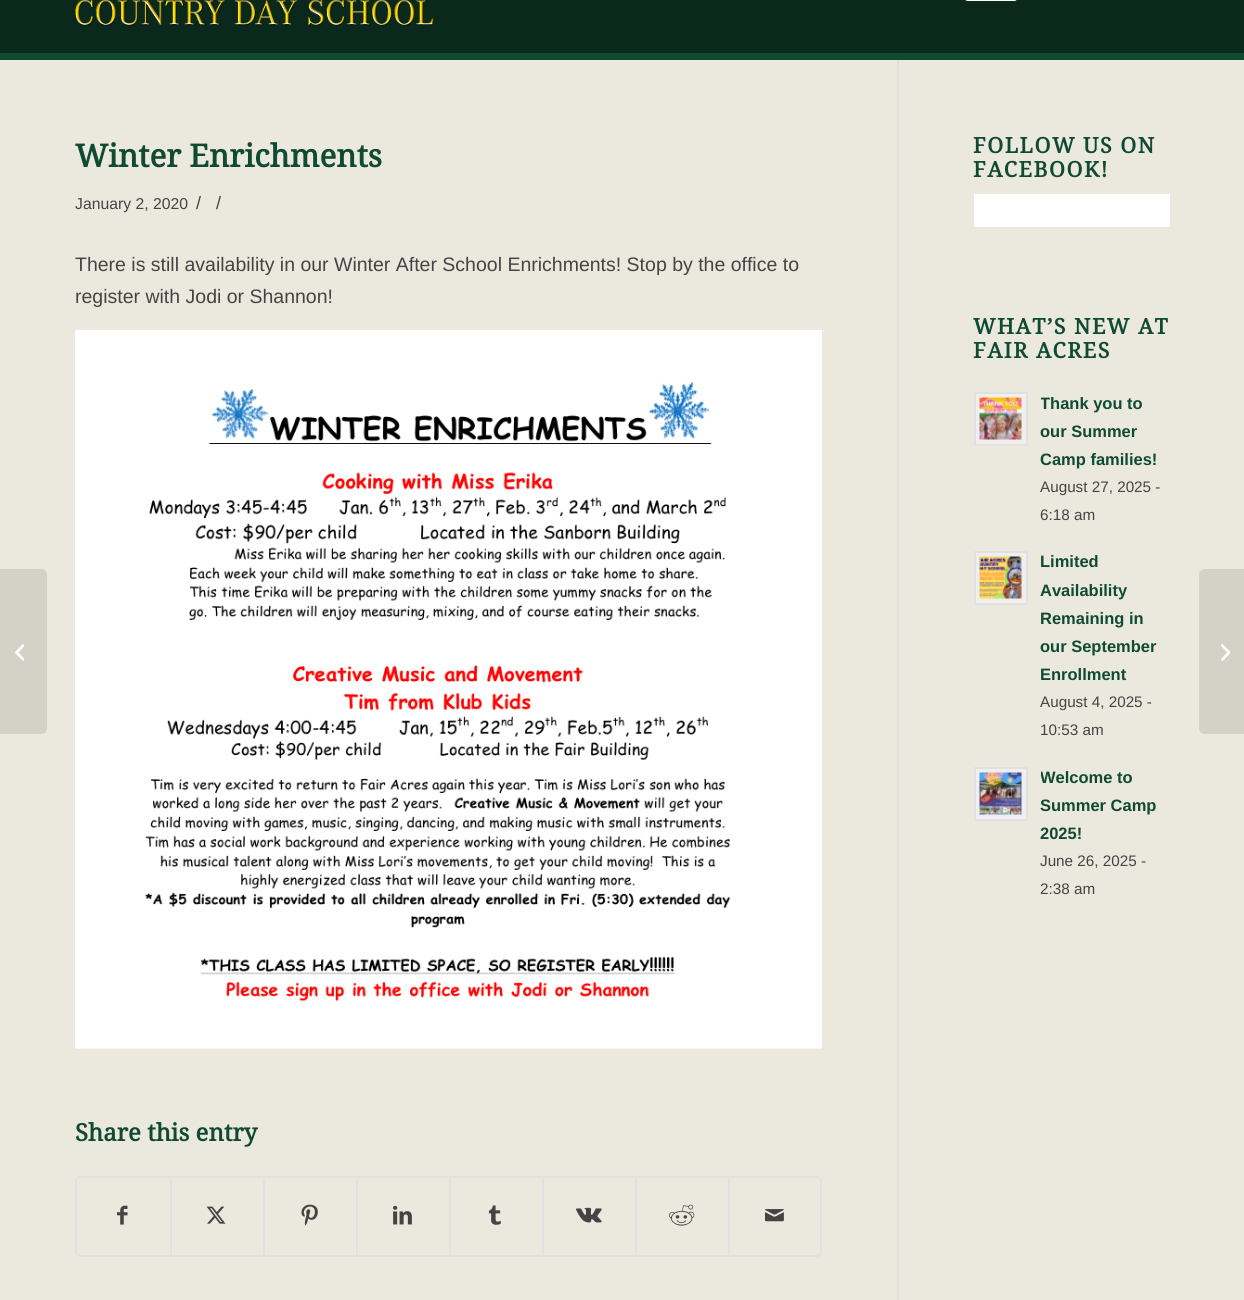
#include <cairo.h>
#include <math.h>
#include <stddef.h>

typedef struct { double x, y; const char *s; } line_t;

static void ink(cairo_t *ctx, unsigned color) {
    cairo_set_source_rgb(ctx, (color >> 16) / 255.0, (color >> 8 & 255) / 255.0, (color & 255) / 255.0);
}

static void write_spaced(cairo_t *ctx, double x, double y, const char *s, double letter, double word) {
    cairo_move_to(ctx, x, y);
    while (*s) {
        char ch[5] = {0};
        int n = 0;
        do ch[n++] = *s++; while ((*s & 0xC0) == 0x80);
        cairo_show_text(ctx, ch);
        cairo_rel_move_to(ctx, letter + word * (*ch == ' '), 0);
    }
}

static void round_path(cairo_t *ctx, double x, double y, double w, double h, double r) {
    cairo_new_sub_path(ctx);
    cairo_arc(ctx, x + w - r, y + h - r, r, 0, M_PI / 2);
    cairo_arc(ctx, x + r, y + h - r, r, M_PI / 2, M_PI);
    cairo_arc(ctx, x + r, y + r, r, M_PI, 1.5 * M_PI);
    cairo_arc(ctx, x + w - r, y + r, r, 1.5 * M_PI, 2 * M_PI);
    cairo_close_path(ctx);
}

static void paste(cairo_t *ctx, const char *path, double x, double y, double w, double h) {
    cairo_surface_t *image = cairo_image_surface_create_from_png(path);
    cairo_save(ctx);
    cairo_set_source_surface(ctx, image, x, y);
    cairo_rectangle(ctx, x, y, w, h);
    cairo_fill(ctx);
    cairo_restore(ctx);
    cairo_surface_destroy(image);
}

int main(void) {
    cairo_surface_t *surface = cairo_image_surface_create(CAIRO_FORMAT_RGB24, 1244, 1300);
    cairo_t *ctx = cairo_create(surface);
    cairo_font_options_t *options = cairo_font_options_create();
    cairo_font_options_set_hint_metrics(options, CAIRO_HINT_METRICS_OFF);
    cairo_font_options_set_hint_style(options, CAIRO_HINT_STYLE_NONE);
    cairo_set_font_options(ctx, options);
    cairo_set_miter_limit(ctx, 4);
    ink(ctx, 0xEBE9DD);
    cairo_paint(ctx);
    ink(ctx, 0x104A33);
    cairo_rectangle(ctx, 0, 53, 1244, 7);
    cairo_fill(ctx);
    ink(ctx, 0x0A281C);
    cairo_rectangle(ctx, 0, 0, 1244, 53);
    cairo_fill(ctx);
    ink(ctx, 0xFFFFFF);
    round_path(ctx, 965, -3, 52, 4, 2.5);
    cairo_fill(ctx);
    paste(ctx, "media/1.png", 75, 0, 359, 26);
    ink(ctx, 0xD4D2C7);
    cairo_new_path(ctx);
    cairo_move_to(ctx, 0, 569);
    cairo_line_to(ctx, 41, 569);
    cairo_curve_to(ctx, 44.5, 569, 47, 571.5, 47, 575);
    cairo_line_to(ctx, 47, 728);
    cairo_curve_to(ctx, 47, 731.5, 44.5, 734, 41, 734);
    cairo_line_to(ctx, 0, 734);
    cairo_close_path(ctx);
    cairo_fill(ctx);
    paste(ctx, "media/2.png", 15, 644, 9, 17);
    ink(ctx, 0xE1E1E1);
    cairo_rectangle(ctx, 897, 60, 2, 1240);
    cairo_fill(ctx);
    cairo_select_font_face(ctx, "Droid Serif", CAIRO_FONT_SLANT_NORMAL, CAIRO_FONT_WEIGHT_BOLD);
    cairo_set_font_size(ctx, 31.5);
    ink(ctx, 0x104A33);
    cairo_move_to(ctx, 75, 167);
    cairo_show_text(ctx, "Winter Enrichments");
    cairo_select_font_face(ctx, "Liberation Sans", CAIRO_FONT_SLANT_NORMAL, CAIRO_FONT_WEIGHT_NORMAL);
    cairo_set_font_size(ctx, 15.75);
    ink(ctx, 0x444444);
    cairo_move_to(ctx, 75, 209);
    cairo_show_text(ctx, "January 2, 2020");
    cairo_set_font_size(ctx, 18);
    cairo_move_to(ctx, 196, 209);
    cairo_show_text(ctx, "/");
    cairo_move_to(ctx, 216, 209);
    cairo_show_text(ctx, "/");
    cairo_set_font_size(ctx, 19.5);
    cairo_move_to(ctx, 75, 271);
    cairo_show_text(ctx, "There is still availability in our Winter After School Enrichments! Stop by the office to");
    cairo_move_to(ctx, 75, 303);
    cairo_show_text(ctx, "register with Jodi or Shannon!");
    paste(ctx, "media/3.png", 75, 330, 747, 719);
    cairo_select_font_face(ctx, "Droid Serif", CAIRO_FONT_SLANT_NORMAL, CAIRO_FONT_WEIGHT_BOLD);
    cairo_set_font_size(ctx, 24);
    ink(ctx, 0x104A33);
    cairo_move_to(ctx, 75, 1141);
    cairo_show_text(ctx, "Share this entry");
    round_path(ctx, 76, 1177, 745, 79, 4);
    ink(ctx, 0xE1E1E1);
    cairo_stroke(ctx);
    paste(ctx, "media/4.png", 117, 1205, 11, 20);
    cairo_rectangle(ctx, 170, 1178, 2, 78);
    cairo_fill(ctx);
    paste(ctx, "media/5.png", 206, 1206, 20, 18);
    cairo_rectangle(ctx, 263, 1178, 2, 78);
    cairo_fill(ctx);
    paste(ctx, "media/6.png", 301, 1204, 17, 22);
    cairo_rectangle(ctx, 356, 1178, 2, 78);
    cairo_fill(ctx);
    paste(ctx, "media/7.png", 393, 1205, 19, 20);
    cairo_rectangle(ctx, 449, 1178, 2, 78);
    cairo_fill(ctx);
    paste(ctx, "media/8.png", 489, 1205, 12, 20);
    cairo_rectangle(ctx, 542, 1178, 2, 78);
    cairo_fill(ctx);
    paste(ctx, "media/9.png", 576, 1207, 26, 16);
    cairo_rectangle(ctx, 635, 1178, 2, 78);
    cairo_fill(ctx);
    paste(ctx, "media/10.png", 669, 1204, 26, 22);
    cairo_rectangle(ctx, 728, 1178, 2, 78);
    cairo_fill(ctx);
    paste(ctx, "media/11.png", 765, 1209, 19, 13);
    cairo_set_font_size(ctx, 21.5);
    ink(ctx, 0x104A33);
    write_spaced(ctx, 973, 153, "FOLLOW US ON", 1.5, 0);
    write_spaced(ctx, 973, 177, "FACEBOOK!", 1.5, 0);
    ink(ctx, 0xFFFFFF);
    cairo_rectangle(ctx, 974, 194, 196, 33);
    cairo_fill(ctx);
    ink(ctx, 0x104A33);
    write_spaced(ctx, 973, 334, "WHAT’S NEW AT", 1.5, 0);
    write_spaced(ctx, 973, 358, "FAIR ACRES", 1.5, 0);
    ink(ctx, 0xEFEFEF);
    cairo_rectangle(ctx, 975, 393, 52, 52);
    cairo_fill_preserve(ctx);
    ink(ctx, 0xE1E1E1);
    cairo_stroke(ctx);
    paste(ctx, "media/12.png", 979, 397, 43, 43);
    cairo_save(ctx);
    cairo_rectangle(ctx, 1041, 389, 129, 141);
    cairo_clip(ctx);
    cairo_select_font_face(ctx, "Liberation Sans", CAIRO_FONT_SLANT_NORMAL, CAIRO_FONT_WEIGHT_BOLD);
    cairo_set_font_size(ctx, 16.5);
    ink(ctx, 0x104A33);
    cairo_move_to(ctx, 1040, 409);
    cairo_show_text(ctx, "Thank you to");
    cairo_restore(ctx);
    cairo_select_font_face(ctx, "Liberation Sans", CAIRO_FONT_SLANT_NORMAL, CAIRO_FONT_WEIGHT_BOLD);
    cairo_set_font_size(ctx, 16.5);
    ink(ctx, 0x104A33);
    cairo_move_to(ctx, 1040, 437);
    cairo_show_text(ctx, "our Summer");
    cairo_move_to(ctx, 1040, 465);
    cairo_show_text(ctx, "Camp families!");
    cairo_select_font_face(ctx, "Liberation Sans", CAIRO_FONT_SLANT_NORMAL, CAIRO_FONT_WEIGHT_NORMAL);
    cairo_set_font_size(ctx, 15.25);
    ink(ctx, 0x444444);
    cairo_move_to(ctx, 1040, 492);
    cairo_show_text(ctx, "August 27, 2025 -");
    cairo_move_to(ctx, 1040, 520);
    cairo_show_text(ctx, "6:18 am");
    ink(ctx, 0xEFEFEF);
    cairo_rectangle(ctx, 975, 552, 52, 52);
    cairo_fill_preserve(ctx);
    ink(ctx, 0xE1E1E1);
    cairo_stroke(ctx);
    paste(ctx, "media/13.png", 979, 556, 43, 43);
    cairo_select_font_face(ctx, "Liberation Sans", CAIRO_FONT_SLANT_NORMAL, CAIRO_FONT_WEIGHT_BOLD);
    cairo_set_font_size(ctx, 16.5);
    ink(ctx, 0x104A33);
    {
        static const line_t items[] = {
            {1040, 567, "Limited"},
            {1040, 596, "Availability"},
            {1040, 624, "Remaining in"},
            {1040, 652, "our September"},
            {1040, 680, "Enrollment"},
        };
        for (size_t i = 0; i < sizeof items / sizeof *items; i++) {
            cairo_move_to(ctx, items[i].x, items[i].y);
            cairo_show_text(ctx, items[i].s);
        }
    }
    cairo_select_font_face(ctx, "Liberation Sans", CAIRO_FONT_SLANT_NORMAL, CAIRO_FONT_WEIGHT_NORMAL);
    cairo_set_font_size(ctx, 15.25);
    ink(ctx, 0x444444);
    cairo_move_to(ctx, 1040, 707);
    cairo_show_text(ctx, "August 4, 2025 -");
    cairo_move_to(ctx, 1040, 735);
    cairo_show_text(ctx, "10:53 am");
    ink(ctx, 0xEFEFEF);
    cairo_rectangle(ctx, 975, 768, 52, 52);
    cairo_fill_preserve(ctx);
    ink(ctx, 0xE1E1E1);
    cairo_stroke(ctx);
    paste(ctx, "media/14.png", 979, 772, 43, 43);
    cairo_save(ctx);
    cairo_rectangle(ctx, 1041, 764, 129, 141);
    cairo_clip(ctx);
    cairo_select_font_face(ctx, "Liberation Sans", CAIRO_FONT_SLANT_NORMAL, CAIRO_FONT_WEIGHT_BOLD);
    cairo_set_font_size(ctx, 16.5);
    ink(ctx, 0x104A33);
    cairo_move_to(ctx, 1040, 783);
    cairo_show_text(ctx, "Welcome to");
    cairo_restore(ctx);
    cairo_select_font_face(ctx, "Liberation Sans", CAIRO_FONT_SLANT_NORMAL, CAIRO_FONT_WEIGHT_BOLD);
    cairo_set_font_size(ctx, 16.5);
    ink(ctx, 0x104A33);
    cairo_move_to(ctx, 1040, 811);
    cairo_show_text(ctx, "Summer Camp");
    cairo_move_to(ctx, 1040, 839);
    cairo_show_text(ctx, "2025!");
    cairo_select_font_face(ctx, "Liberation Sans", CAIRO_FONT_SLANT_NORMAL, CAIRO_FONT_WEIGHT_NORMAL);
    cairo_set_font_size(ctx, 15.25);
    ink(ctx, 0x444444);
    cairo_move_to(ctx, 1040, 866);
    cairo_show_text(ctx, "June 26, 2025 -");
    cairo_move_to(ctx, 1040, 894);
    cairo_show_text(ctx, "2:38 am");
    ink(ctx, 0xD4D2C7);
    cairo_new_path(ctx);
    cairo_move_to(ctx, 1205, 569);
    cairo_line_to(ctx, 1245, 569);
    cairo_line_to(ctx, 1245, 734);
    cairo_line_to(ctx, 1205, 734);
    cairo_curve_to(ctx, 1201.5, 734, 1199, 731.5, 1199, 728);
    cairo_line_to(ctx, 1199, 575);
    cairo_curve_to(ctx, 1199, 571.5, 1201.5, 569, 1205, 569);
    cairo_close_path(ctx);
    cairo_fill(ctx);
    paste(ctx, "media/15.png", 1221, 644, 9, 17);
    cairo_surface_write_to_png(surface, "image.png");
    cairo_font_options_destroy(options);
    cairo_destroy(ctx);
    cairo_surface_destroy(surface);
    return 0;
}
